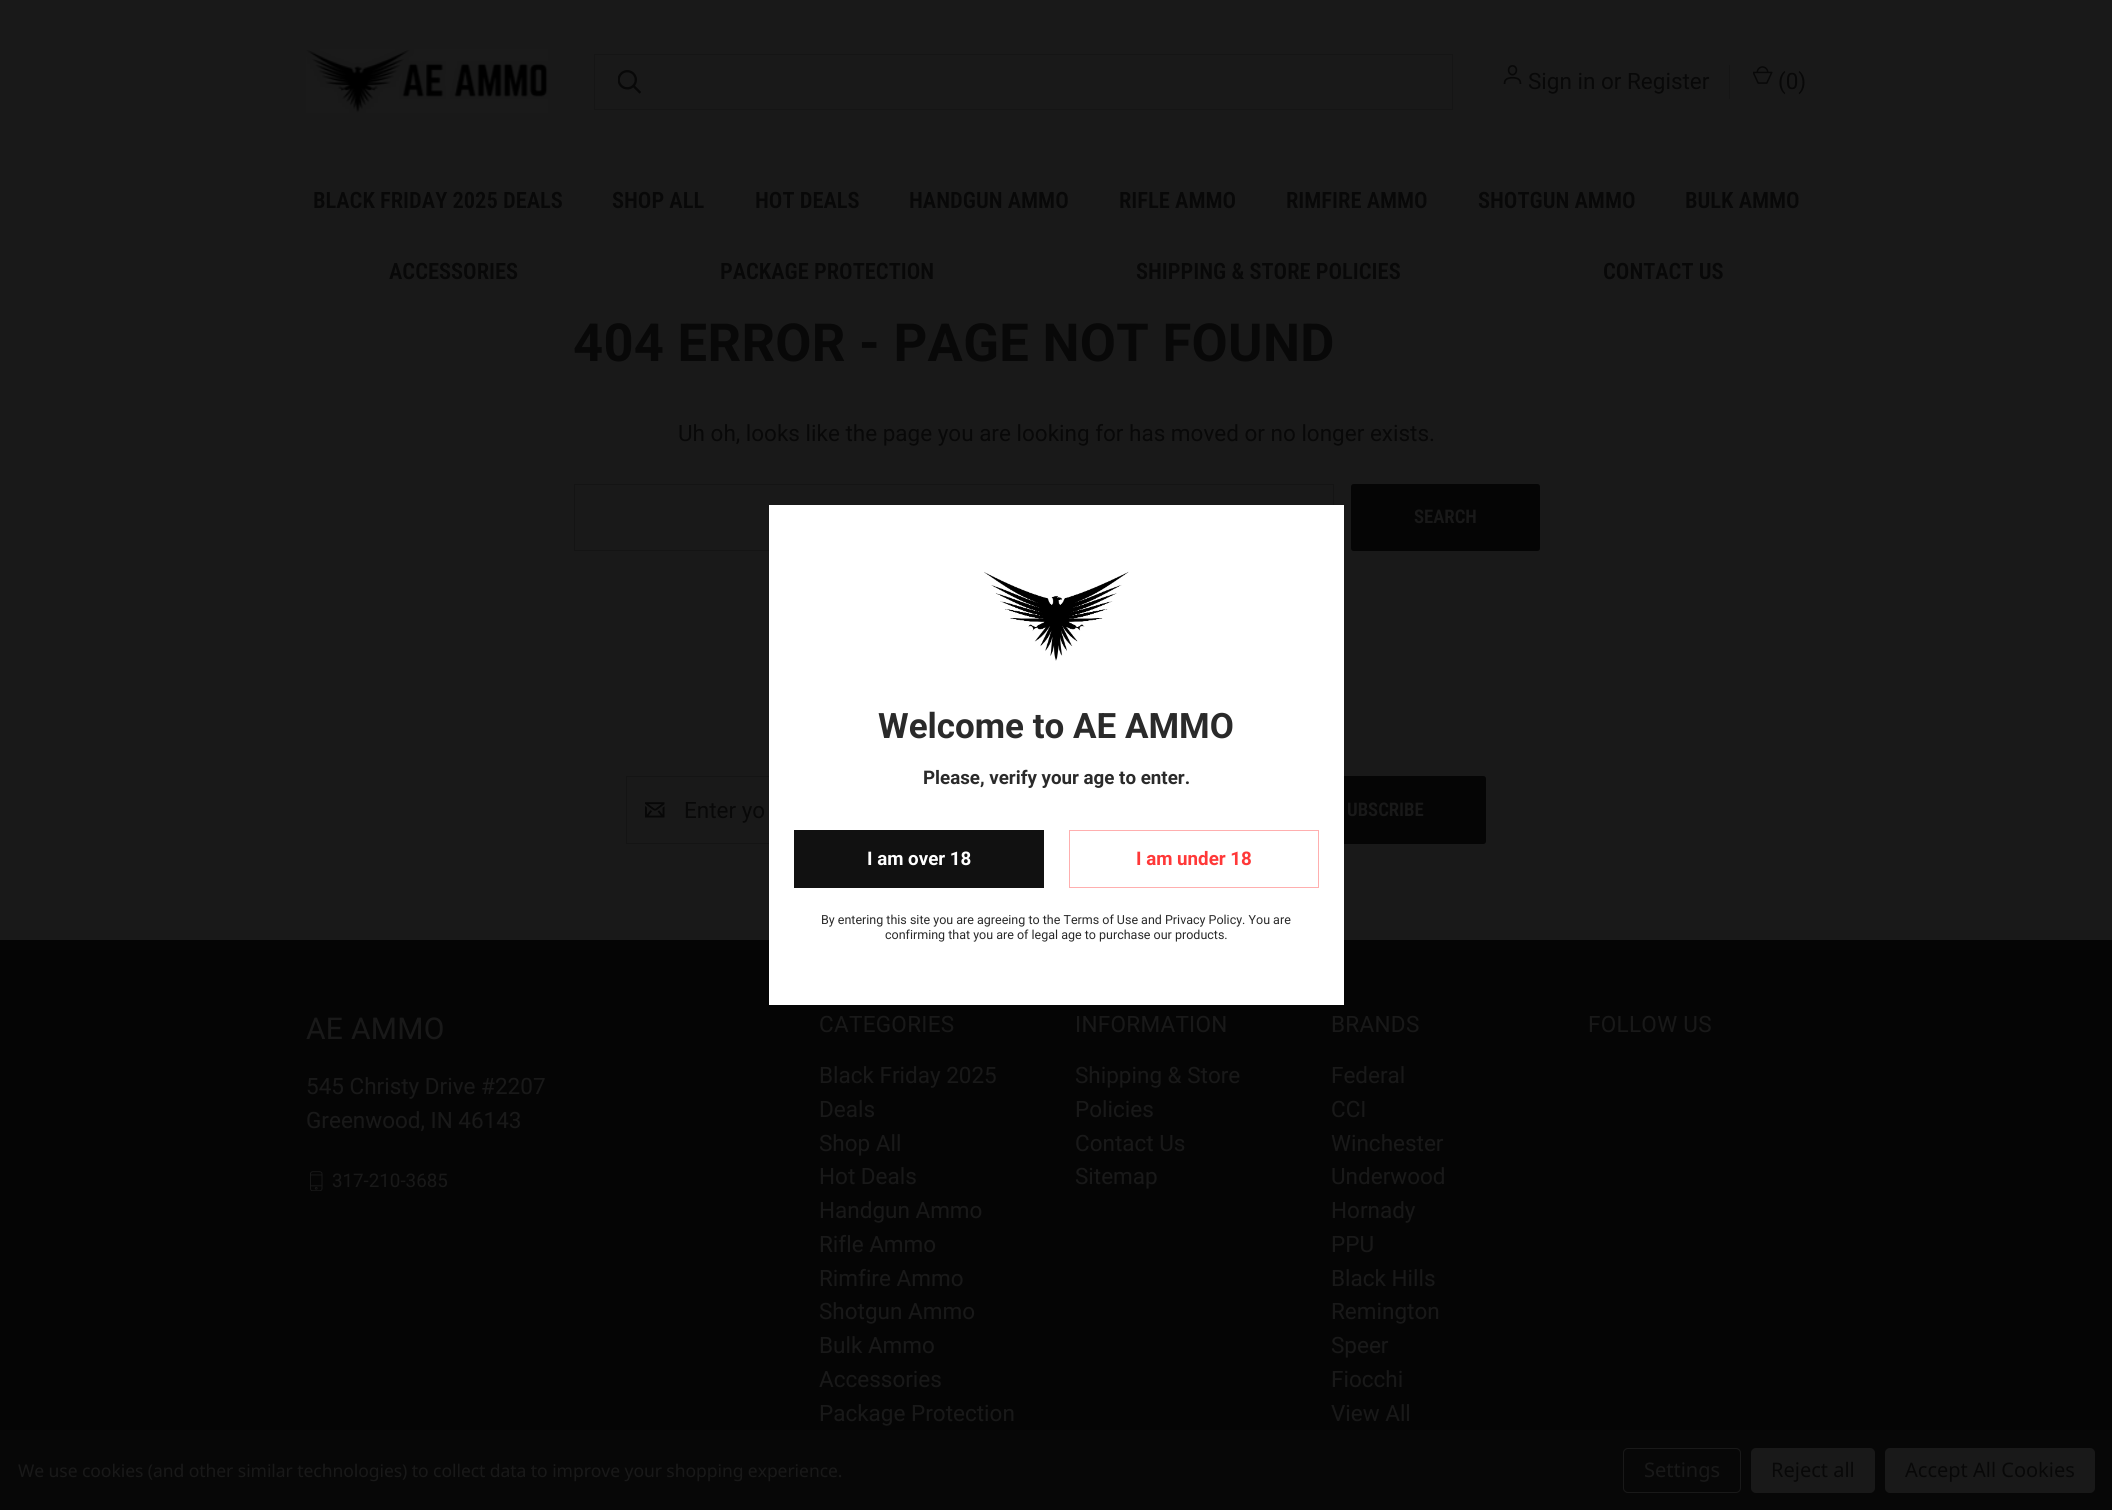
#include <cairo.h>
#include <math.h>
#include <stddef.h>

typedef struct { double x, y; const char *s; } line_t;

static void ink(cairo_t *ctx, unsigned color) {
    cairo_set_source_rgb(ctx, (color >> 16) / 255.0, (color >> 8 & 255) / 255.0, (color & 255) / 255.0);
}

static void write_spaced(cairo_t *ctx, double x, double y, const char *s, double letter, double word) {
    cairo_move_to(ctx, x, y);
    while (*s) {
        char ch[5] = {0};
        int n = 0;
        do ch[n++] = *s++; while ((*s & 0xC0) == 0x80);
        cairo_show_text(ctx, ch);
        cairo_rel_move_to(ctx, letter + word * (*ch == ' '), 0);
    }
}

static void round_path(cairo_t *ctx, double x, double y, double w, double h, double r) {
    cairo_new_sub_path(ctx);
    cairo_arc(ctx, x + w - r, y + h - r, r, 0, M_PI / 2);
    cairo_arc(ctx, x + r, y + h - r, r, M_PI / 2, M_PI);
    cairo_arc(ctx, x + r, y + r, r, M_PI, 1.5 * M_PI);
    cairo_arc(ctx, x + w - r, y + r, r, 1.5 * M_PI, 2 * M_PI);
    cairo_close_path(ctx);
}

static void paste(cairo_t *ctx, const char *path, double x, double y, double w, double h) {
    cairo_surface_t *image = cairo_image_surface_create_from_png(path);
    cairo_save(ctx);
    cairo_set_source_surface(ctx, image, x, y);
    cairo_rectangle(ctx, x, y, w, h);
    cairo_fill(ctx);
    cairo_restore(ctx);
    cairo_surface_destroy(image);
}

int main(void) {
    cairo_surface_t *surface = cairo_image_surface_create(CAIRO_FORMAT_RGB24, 2112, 1510);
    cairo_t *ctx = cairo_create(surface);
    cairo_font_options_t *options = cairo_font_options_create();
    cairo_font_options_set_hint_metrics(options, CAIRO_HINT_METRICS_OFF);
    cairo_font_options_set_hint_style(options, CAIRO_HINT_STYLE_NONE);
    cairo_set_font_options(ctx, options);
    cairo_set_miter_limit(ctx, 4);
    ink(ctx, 0x191919);
    cairo_paint(ctx);
    paste(ctx, "media/1.png", 306, 49, 242, 64);
    cairo_rectangle(ctx, 594.5, 54.5, 858, 55);
    ink(ctx, 0x151515);
    cairo_set_line_width(ctx, 1);
    cairo_stroke(ctx);
    paste(ctx, "media/2.png", 618, 70, 23, 24);
    paste(ctx, "media/3.png", 1503, 65, 19, 19);
    cairo_select_font_face(ctx, "Roboto", CAIRO_FONT_SLANT_NORMAL, CAIRO_FONT_WEIGHT_NORMAL);
    cairo_set_font_size(ctx, 22.5);
    ink(ctx, 0x080808);
    cairo_move_to(ctx, 1528, 89);
    cairo_show_text(ctx, "Sign in or Register");
    ink(ctx, 0x151515);
    cairo_rectangle(ctx, 1729, 65, 1, 34);
    cairo_fill(ctx);
    paste(ctx, "media/4.png", 1753, 66, 20, 18);
    ink(ctx, 0x080808);
    cairo_move_to(ctx, 1778, 89);
    cairo_show_text(ctx, "(0)");
    cairo_select_font_face(ctx, "Roboto Condensed SemiBold", CAIRO_FONT_SLANT_NORMAL, CAIRO_FONT_WEIGHT_NORMAL);
    {
        static const line_t items[] = {
            {313, 208, "BLACK FRIDAY 2025 DEALS"},
            {612, 208, "SHOP ALL"},
            {755, 208, "HOT DEALS"},
            {909, 208, "HANDGUN AMMO"},
            {1119, 208, "RIFLE AMMO"},
            {1286, 208, "RIMFIRE AMMO"},
            {1478, 208, "SHOTGUN AMMO"},
            {1685, 208, "BULK AMMO"},
            {389, 279, "ACCESSORIES"},
            {720, 279, "PACKAGE PROTECTION"},
            {1136, 279, "SHIPPING & STORE POLICIES"},
            {1603, 279, "CONTACT US"},
        };
        for (size_t i = 0; i < sizeof items / sizeof *items; i++) {
            cairo_move_to(ctx, items[i].x, items[i].y);
            cairo_show_text(ctx, items[i].s);
        }
    }
    cairo_select_font_face(ctx, "Roboto", CAIRO_FONT_SLANT_NORMAL, CAIRO_FONT_WEIGHT_BOLD);
    cairo_set_font_size(ctx, 52.5);
    write_spaced(ctx, 573, 361, "404 ERROR - PAGE NOT FOUND", 0.3, 0);
    cairo_select_font_face(ctx, "Roboto", CAIRO_FONT_SLANT_NORMAL, CAIRO_FONT_WEIGHT_NORMAL);
    cairo_set_font_size(ctx, 22.5);
    cairo_move_to(ctx, 678, 441);
    cairo_show_text(ctx, "Uh oh, looks like the page you are looking for has moved or no longer exists.");
    cairo_rectangle(ctx, 574.5, 484.5, 759, 66);
    ink(ctx, 0x141414);
    cairo_stroke(ctx);
    ink(ctx, 0x050505);
    round_path(ctx, 1351, 484, 189, 67, 2.5);
    cairo_fill(ctx);
    cairo_select_font_face(ctx, "Roboto Condensed SemiBold", CAIRO_FONT_SLANT_NORMAL, CAIRO_FONT_WEIGHT_NORMAL);
    cairo_set_font_size(ctx, 18.75);
    ink(ctx, 0x191919);
    cairo_move_to(ctx, 1414, 523);
    cairo_show_text(ctx, "SEARCH");
    cairo_rectangle(ctx, 626.5, 776.5, 636, 67);
    ink(ctx, 0x141414);
    cairo_stroke(ctx);
    ink(ctx, 0x050505);
    round_path(ctx, 1275, 776, 211, 68, 2.5);
    cairo_fill(ctx);
    cairo_rectangle(ctx, 0, 940, 2112, 490);
    cairo_fill(ctx);
    ink(ctx, 0xFFFFFF);
    cairo_rectangle(ctx, 769, 505, 575, 500);
    cairo_fill(ctx);
    paste(ctx, "media/5.png", 984, 571, 145, 90);
    cairo_select_font_face(ctx, "Roboto", CAIRO_FONT_SLANT_NORMAL, CAIRO_FONT_WEIGHT_BOLD);
    cairo_set_font_size(ctx, 35);
    ink(ctx, 0x2A2A2A);
    cairo_move_to(ctx, 878, 738);
    cairo_show_text(ctx, "Welcome to AE AMMO");
    cairo_set_font_size(ctx, 18.75);
    cairo_move_to(ctx, 923, 784);
    cairo_show_text(ctx, "Please, verify your age to enter.");
    ink(ctx, 0x111111);
    cairo_rectangle(ctx, 794, 830, 250, 58);
    cairo_fill(ctx);
    ink(ctx, 0xFFFFFF);
    cairo_move_to(ctx, 867, 865);
    cairo_show_text(ctx, "I am over 18");
    cairo_rectangle(ctx, 1069.5, 830.5, 249, 57);
    ink(ctx, 0xFFAFAF);
    cairo_stroke(ctx);
    ink(ctx, 0xFF3838);
    cairo_move_to(ctx, 1136, 865);
    cairo_show_text(ctx, "I am under 18");
    cairo_select_font_face(ctx, "Roboto", CAIRO_FONT_SLANT_NORMAL, CAIRO_FONT_WEIGHT_NORMAL);
    cairo_set_font_size(ctx, 12.5);
    ink(ctx, 0x2A2A2A);
    cairo_move_to(ctx, 821, 924);
    cairo_show_text(ctx, "By entering this site you are agreeing to the Terms of Use and Privacy Policy. You are");
    cairo_move_to(ctx, 885, 939);
    cairo_show_text(ctx, "confirming that you are of legal age to purchase our products.");
    paste(ctx, "media/6.png", 645, 802, 20, 16);
    cairo_set_font_size(ctx, 22.5);
    ink(ctx, 0x080808);
    cairo_move_to(ctx, 684, 818);
    cairo_show_text(ctx, "Enter yo");
    cairo_select_font_face(ctx, "Roboto Condensed SemiBold", CAIRO_FONT_SLANT_NORMAL, CAIRO_FONT_WEIGHT_NORMAL);
    cairo_set_font_size(ctx, 18.75);
    ink(ctx, 0x191919);
    cairo_move_to(ctx, 1347, 816);
    cairo_show_text(ctx, "UBSCRIBE");
    cairo_select_font_face(ctx, "Roboto", CAIRO_FONT_SLANT_NORMAL, CAIRO_FONT_WEIGHT_NORMAL);
    cairo_set_font_size(ctx, 30);
    write_spaced(ctx, 306, 1039, "AE AMMO", 0.3, 0);
    cairo_set_font_size(ctx, 22.5);
    cairo_move_to(ctx, 306, 1094);
    cairo_show_text(ctx, "545 Christy Drive #2207");
    cairo_move_to(ctx, 306, 1128);
    cairo_show_text(ctx, "Greenwood, IN 46143");
    paste(ctx, "media/7.png", 310, 1171, 13, 20);
    cairo_set_font_size(ctx, 18.75);
    cairo_move_to(ctx, 332, 1187);
    cairo_show_text(ctx, "317-210-3685");
    cairo_set_font_size(ctx, 22.5);
    write_spaced(ctx, 819, 1032, "CATEGORIES", 0.3, 0);
    {
        static const line_t items[] = {
            {819, 1083, "Black Friday 2025"},
            {819, 1117, "Deals"},
            {819, 1151, "Shop All"},
            {819, 1184, "Hot Deals"},
            {819, 1218, "Handgun Ammo"},
            {819, 1252, "Rifle Ammo"},
            {819, 1286, "Rimfire Ammo"},
            {819, 1319, "Shotgun Ammo"},
            {819, 1353, "Bulk Ammo"},
            {819, 1387, "Accessories"},
            {819, 1421, "Package Protection"},
        };
        for (size_t i = 0; i < sizeof items / sizeof *items; i++) {
            cairo_move_to(ctx, items[i].x, items[i].y);
            cairo_show_text(ctx, items[i].s);
        }
    }
    write_spaced(ctx, 1075, 1032, "INFORMATION", 0.3, 0);
    {
        static const line_t items[] = {
            {1075, 1083, "Shipping & Store"},
            {1075, 1117, "Policies"},
            {1075, 1151, "Contact Us"},
            {1075, 1184, "Sitemap"},
        };
        for (size_t i = 0; i < sizeof items / sizeof *items; i++) {
            cairo_move_to(ctx, items[i].x, items[i].y);
            cairo_show_text(ctx, items[i].s);
        }
    }
    write_spaced(ctx, 1331, 1032, "BRANDS", 0.3, 0);
    {
        static const line_t items[] = {
            {1331, 1083, "Federal"},
            {1331, 1117, "CCI"},
            {1331, 1151, "Winchester"},
            {1331, 1184, "Underwood"},
            {1331, 1218, "Hornady"},
            {1331, 1252, "PPU"},
            {1331, 1286, "Black Hills"},
            {1331, 1319, "Remington"},
            {1331, 1353, "Speer"},
            {1331, 1387, "Fiocchi"},
            {1331, 1421, "View All"},
        };
        for (size_t i = 0; i < sizeof items / sizeof *items; i++) {
            cairo_move_to(ctx, items[i].x, items[i].y);
            cairo_show_text(ctx, items[i].s);
        }
    }
    write_spaced(ctx, 1588, 1032, "FOLLOW US", 0.3, 0);
    ink(ctx, 0x070707);
    cairo_rectangle(ctx, 0, 1430, 2112, 80);
    cairo_fill(ctx);
    cairo_select_font_face(ctx, "Noto Sans", CAIRO_FONT_SLANT_NORMAL, CAIRO_FONT_WEIGHT_NORMAL);
    cairo_set_font_size(ctx, 17.5);
    ink(ctx, 0x191919);
    write_spaced(ctx, 18, 1477, "We use cookies (and other similar technologies) to collect data to improve your shopping experience.", -0.05, 0);
    round_path(ctx, 1623.5, 1448.5, 117, 44, 4.5);
    cairo_stroke(ctx);
    cairo_set_font_size(ctx, 20);
    cairo_move_to(ctx, 1644, 1477);
    cairo_show_text(ctx, "Settings");
    round_path(ctx, 1751, 1448, 124, 45, 5);
    cairo_fill(ctx);
    ink(ctx, 0x080808);
    cairo_move_to(ctx, 1771, 1477);
    cairo_show_text(ctx, "Reject all");
    ink(ctx, 0x191919);
    round_path(ctx, 1885, 1448, 210, 45, 5);
    cairo_fill(ctx);
    ink(ctx, 0x080808);
    cairo_move_to(ctx, 1905, 1477);
    cairo_show_text(ctx, "Accept All Cookies");
    cairo_surface_write_to_png(surface, "image.png");
    cairo_font_options_destroy(options);
    cairo_destroy(ctx);
    cairo_surface_destroy(surface);
    return 0;
}
